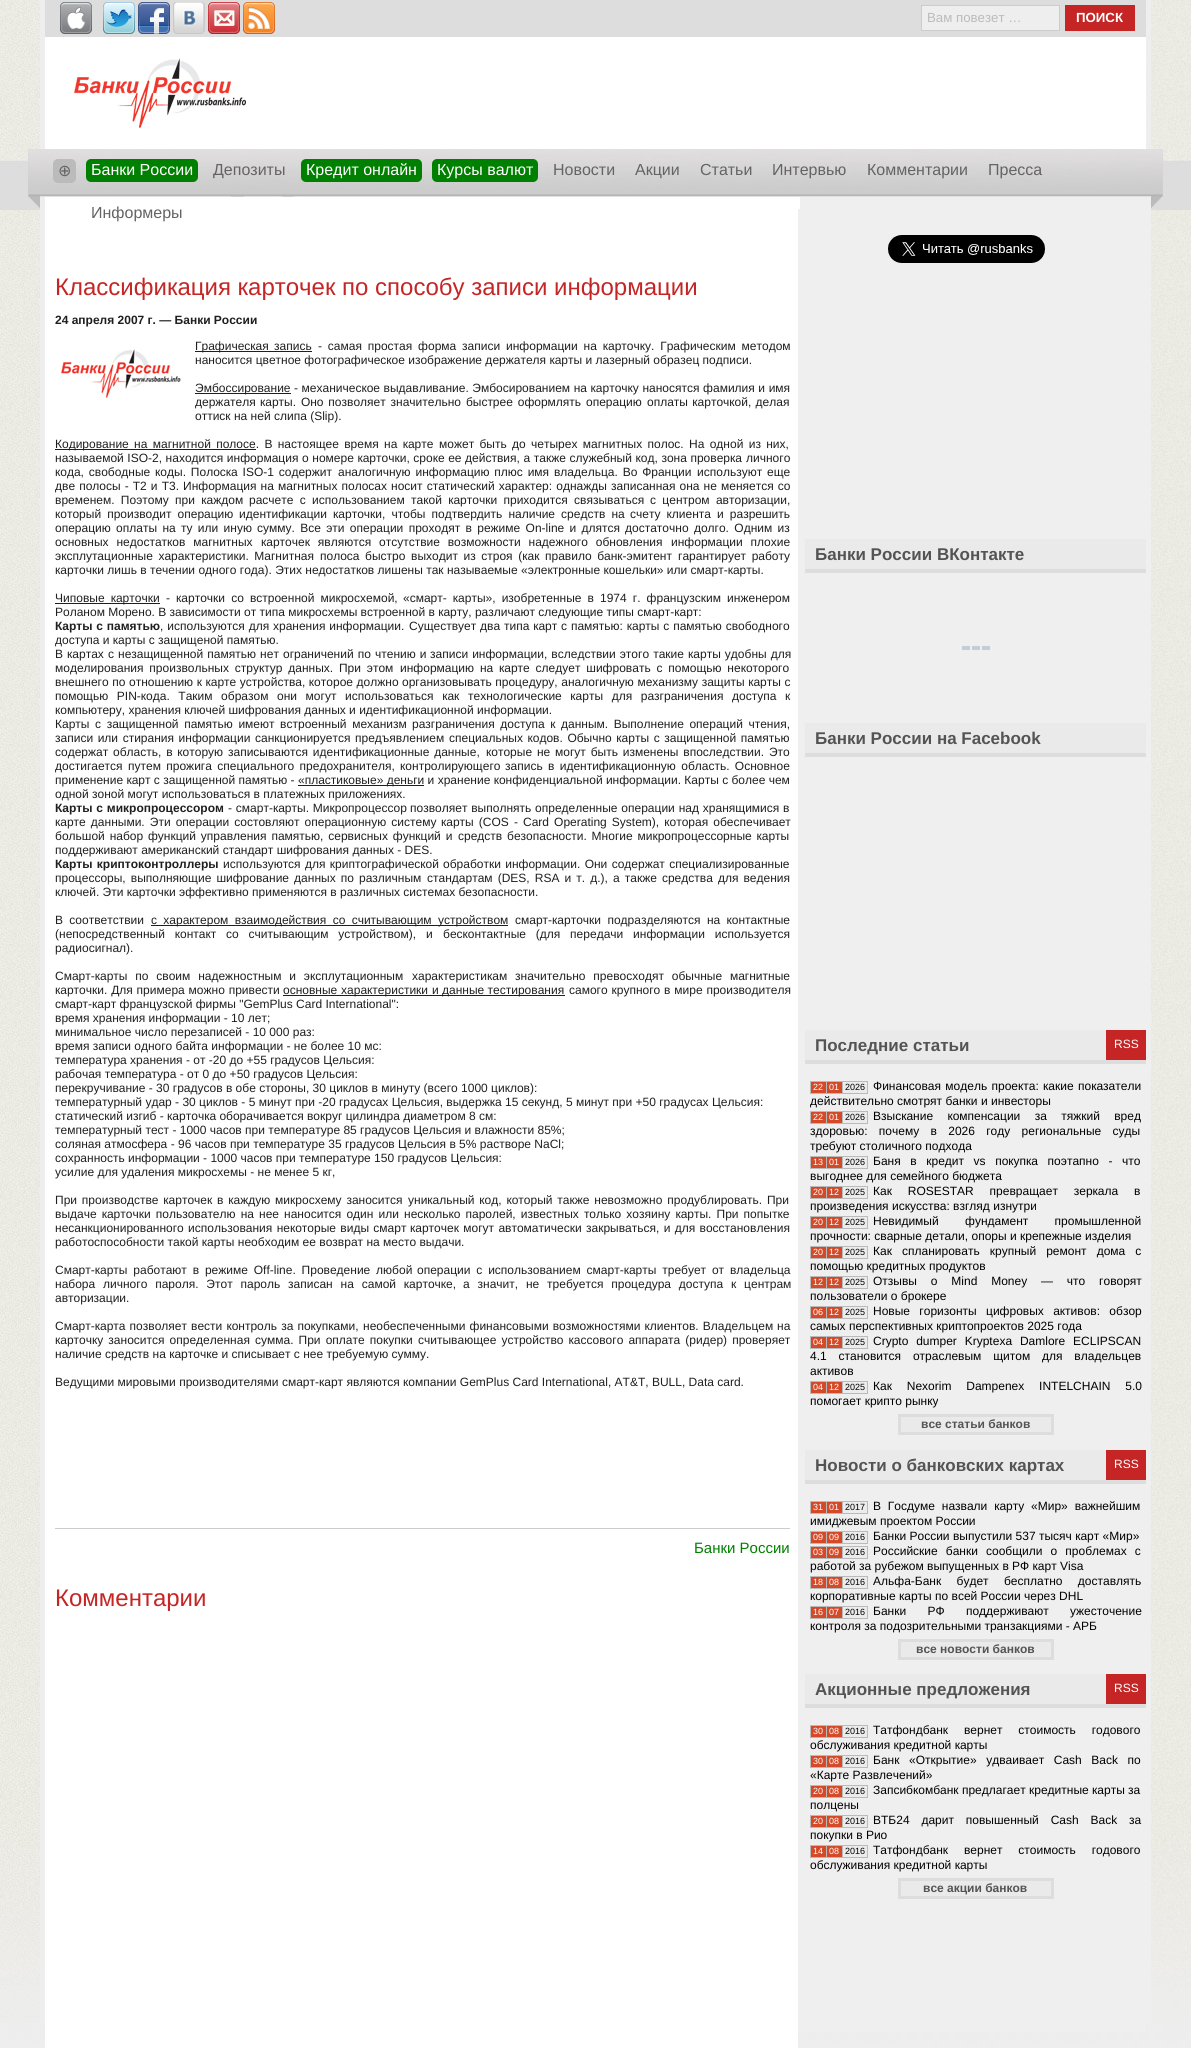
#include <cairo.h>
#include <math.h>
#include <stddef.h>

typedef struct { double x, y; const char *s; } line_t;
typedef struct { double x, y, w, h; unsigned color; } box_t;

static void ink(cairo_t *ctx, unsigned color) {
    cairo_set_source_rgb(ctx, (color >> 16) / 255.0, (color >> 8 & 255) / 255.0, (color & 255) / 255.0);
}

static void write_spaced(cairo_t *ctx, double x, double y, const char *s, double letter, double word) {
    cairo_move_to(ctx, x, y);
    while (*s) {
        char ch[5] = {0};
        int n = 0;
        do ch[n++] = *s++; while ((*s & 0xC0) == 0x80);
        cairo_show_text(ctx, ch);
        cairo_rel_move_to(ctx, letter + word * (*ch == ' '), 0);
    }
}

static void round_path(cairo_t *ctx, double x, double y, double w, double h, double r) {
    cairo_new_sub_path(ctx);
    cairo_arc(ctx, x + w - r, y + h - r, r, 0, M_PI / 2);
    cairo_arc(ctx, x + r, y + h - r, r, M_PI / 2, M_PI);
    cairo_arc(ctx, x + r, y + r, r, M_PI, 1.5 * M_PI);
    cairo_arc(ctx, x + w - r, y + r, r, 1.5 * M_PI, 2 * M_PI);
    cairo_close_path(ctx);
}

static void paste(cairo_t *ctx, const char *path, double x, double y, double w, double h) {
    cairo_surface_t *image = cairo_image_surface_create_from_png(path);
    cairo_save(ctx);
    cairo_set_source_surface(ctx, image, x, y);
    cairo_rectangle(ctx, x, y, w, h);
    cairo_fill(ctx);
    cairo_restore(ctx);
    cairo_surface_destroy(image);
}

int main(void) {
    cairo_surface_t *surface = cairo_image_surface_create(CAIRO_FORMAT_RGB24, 1191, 2048);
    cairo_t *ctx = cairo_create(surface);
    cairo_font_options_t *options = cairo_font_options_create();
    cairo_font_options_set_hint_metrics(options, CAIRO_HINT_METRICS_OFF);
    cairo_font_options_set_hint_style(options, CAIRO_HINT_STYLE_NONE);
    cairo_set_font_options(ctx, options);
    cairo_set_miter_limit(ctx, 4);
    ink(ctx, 0xFFFFFF);
    cairo_paint(ctx);
    paste(ctx, "media/1.png", 0, 0, 1191, 2048);
    {
        static const box_t items[] = {
            {45, 0, 1101, 37, 0xDDDDDD},
            {1146, 0, 5, 149, 0xEEEEEE},
            {40, 0, 5, 149, 0xEEEEEE},
        };
        for (size_t i = 0; i < sizeof items / sizeof *items; i++) {
            ink(ctx, items[i].color);
            cairo_rectangle(ctx, items[i].x, items[i].y, items[i].w, items[i].h);
            cairo_fill(ctx);
        }
    }
    paste(ctx, "media/2.png", 60, 2, 32, 32);
    paste(ctx, "media/3.png", 103, 2, 32, 32);
    paste(ctx, "media/4.png", 138, 2, 32, 32);
    paste(ctx, "media/5.png", 173, 2, 32, 32);
    paste(ctx, "media/6.png", 208, 2, 32, 32);
    paste(ctx, "media/7.png", 243, 2, 32, 32);
    cairo_rectangle(ctx, 921.5, 5.5, 138, 25);
    cairo_fill_preserve(ctx);
    ink(ctx, 0xCCCCCC);
    cairo_set_line_width(ctx, 1);
    cairo_stroke(ctx);
    cairo_select_font_face(ctx, "Liberation Sans", CAIRO_FONT_SLANT_NORMAL, CAIRO_FONT_WEIGHT_NORMAL);
    cairo_set_font_size(ctx, 13.25);
    ink(ctx, 0xBBBBBB);
    cairo_move_to(ctx, 927, 22);
    cairo_show_text(ctx, "Вам повезет …");
    ink(ctx, 0xC52525);
    cairo_rectangle(ctx, 1065, 5, 70, 26);
    cairo_fill(ctx);
    cairo_select_font_face(ctx, "Liberation Sans", CAIRO_FONT_SLANT_NORMAL, CAIRO_FONT_WEIGHT_BOLD);
    ink(ctx, 0xFFFFFF);
    cairo_move_to(ctx, 1076, 22);
    cairo_show_text(ctx, "ПОИСК");
    cairo_rectangle(ctx, 45, 37, 1101, 112);
    cairo_fill(ctx);
    paste(ctx, "media/8.png", 74, 58, 172, 70);
    paste(ctx, "media/9.png", 28, 149, 1135, 60);
    ink(ctx, 0xBBBBBB);
    round_path(ctx, 53, 159, 23, 24, 5);
    cairo_fill(ctx);
    cairo_select_font_face(ctx, "DejaVu Sans", CAIRO_FONT_SLANT_NORMAL, CAIRO_FONT_WEIGHT_NORMAL);
    cairo_set_font_size(ctx, 16);
    ink(ctx, 0x646464);
    cairo_move_to(ctx, 58, 176);
    cairo_show_text(ctx, "⊕");
    ink(ctx, 0x008000);
    round_path(ctx, 86, 159, 112, 23, 5);
    cairo_fill(ctx);
    cairo_select_font_face(ctx, "Liberation Sans", CAIRO_FONT_SLANT_NORMAL, CAIRO_FONT_WEIGHT_NORMAL);
    ink(ctx, 0xFFFFFF);
    cairo_move_to(ctx, 91, 175);
    cairo_show_text(ctx, "Банки России");
    ink(ctx, 0x646464);
    cairo_move_to(ctx, 213, 175);
    cairo_show_text(ctx, "Депозиты");
    ink(ctx, 0x008000);
    round_path(ctx, 301, 159, 121, 23, 5);
    cairo_fill(ctx);
    ink(ctx, 0xFFFFFF);
    cairo_move_to(ctx, 306, 175);
    cairo_show_text(ctx, "Кредит онлайн");
    ink(ctx, 0x008000);
    round_path(ctx, 432, 159, 106, 23, 5);
    cairo_fill(ctx);
    ink(ctx, 0xFFFFFF);
    cairo_move_to(ctx, 437, 175);
    cairo_show_text(ctx, "Курсы валют");
    ink(ctx, 0x646464);
    {
        static const line_t items[] = {
            {553, 175, "Новости"},
            {635, 175, "Акции"},
            {700, 175, "Статьи"},
            {772, 175, "Интервью"},
            {867, 175, "Комментарии"},
            {988, 175, "Пресса"},
        };
        for (size_t i = 0; i < sizeof items / sizeof *items; i++) {
            cairo_move_to(ctx, items[i].x, items[i].y);
            cairo_show_text(ctx, items[i].s);
        }
    }
    ink(ctx, 0xFFFFFF);
    cairo_rectangle(ctx, 45, 209, 753, 1839);
    cairo_fill(ctx);
    ink(ctx, 0x646464);
    cairo_move_to(ctx, 91, 218);
    cairo_show_text(ctx, "Информеры");
    {
        static const box_t items[] = {
            {798, 209, 348, 1823, 0xEFEFEF},
            {1146, 209, 5, 1815, 0xEFEFEF},
            {40, 209, 5, 1815, 0xEEEEEE},
        };
        for (size_t i = 0; i < sizeof items / sizeof *items; i++) {
            ink(ctx, items[i].color);
            cairo_rectangle(ctx, items[i].x, items[i].y, items[i].w, items[i].h);
            cairo_fill(ctx);
        }
    }
    cairo_set_font_size(ctx, 24);
    ink(ctx, 0xC52525);
    cairo_move_to(ctx, 55, 295);
    cairo_show_text(ctx, "Классификация карточек по способу записи информации");
    cairo_select_font_face(ctx, "Liberation Sans", CAIRO_FONT_SLANT_NORMAL, CAIRO_FONT_WEIGHT_BOLD);
    cairo_set_font_size(ctx, 12);
    ink(ctx, 0x1F1F1F);
    cairo_move_to(ctx, 55, 324);
    cairo_show_text(ctx, "24 апреля 2007 г. — Банки России");
    cairo_rectangle(ctx, 195, 351, 117, 1);
    cairo_fill(ctx);
    cairo_select_font_face(ctx, "Liberation Sans", CAIRO_FONT_SLANT_NORMAL, CAIRO_FONT_WEIGHT_NORMAL);
    write_spaced(ctx, 195, 350, "Графическая запись", 0, 2);
    write_spaced(ctx, 318, 350, "- самая простая форма записи информации на карточку. Графическим методом", 0, 2.5);
    paste(ctx, "media/10.png", 61, 349, 120, 49);
    cairo_move_to(ctx, 195, 364);
    cairo_show_text(ctx, "наносится цветное фотографическое изображение держателя карты и лазерный образец подписи.");
    cairo_rectangle(ctx, 195, 393, 96, 1);
    cairo_fill(ctx);
    cairo_move_to(ctx, 195, 392);
    cairo_show_text(ctx, "Эмбоссирование");
    write_spaced(ctx, 294, 392, "- механическое выдавливание. Эмбосированием на карточку наносятся фамилия и имя", 0, 0.25);
    cairo_move_to(ctx, 195, 406);
    cairo_show_text(ctx, "держателя");
    write_spaced(ctx, 260, 406, "карты. Оно позволяет значительно быстрее оформлять операцию", 0, 1.5);
    write_spaced(ctx, 647, 406, "оплаты карточкой, делая", 0, 1);
    cairo_move_to(ctx, 195, 420);
    cairo_show_text(ctx, "оттиск на ней слипа (Slip).");
    cairo_rectangle(ctx, 55, 449, 201, 1);
    cairo_fill(ctx);
    write_spaced(ctx, 55, 448, "Кодирование на магнитной полосе. В настоящее время на карте", 0, 2);
    write_spaced(ctx, 439, 448, "может быть до четырех магнитных полос. На одной из них,", 0, 2);
    write_spaced(ctx, 55, 462, "называемой ISO-2, находится информация о номере карточки, сроке ее действия, а также служебный код, зона проверка", 0, 0.25);
    cairo_move_to(ctx, 746, 462);
    cairo_show_text(ctx, "личного");
    {
        static const line_t items[] = {
            {55, 476, "кода, свободные коды. Полоска ISO-1 содержит"},
            {338, 476, "аналогичную информацию плюс имя владельца. Во Франции"},
            {697, 476, "используют еще"},
        };
        for (size_t i = 0; i < sizeof items / sizeof *items; i++) {
            write_spaced(ctx, items[i].x, items[i].y, items[i].s, 0, 1.5);
        }
    }
    {
        static const line_t items[] = {
            {55, 490, "две полосы - Т2 и Т3. Информация на"},
            {278, 490, "магнитных полосах носит статический характер: однажды"},
            {611, 490, "записанная она не меняется со"},
        };
        for (size_t i = 0; i < sizeof items / sizeof *items; i++) {
            write_spaced(ctx, items[i].x, items[i].y, items[i].s, 0, 0.75);
        }
    }
    {
        static const line_t items[] = {
            {55, 504, "временем. Поэтому при каждом"},
            {249, 504, "расчете с использованием такой карточки приходится связываться"},
            {650, 504, "с центром авторизации,"},
        };
        for (size_t i = 0; i < sizeof items / sizeof *items; i++) {
            write_spaced(ctx, items[i].x, items[i].y, items[i].s, 0, 3);
        }
    }
    {
        static const line_t items[] = {
            {55, 518, "который производит операцию"},
            {239, 518, "идентификации карточки, чтобы подтвердить наличие средств на"},
            {630, 518, "счету клиента и разрешить"},
        };
        for (size_t i = 0; i < sizeof items / sizeof *items; i++) {
            write_spaced(ctx, items[i].x, items[i].y, items[i].s, 0, 2.75);
        }
    }
    {
        static const line_t items[] = {
            {55, 532, "операцию оплаты на ту или иную"},
            {257, 532, "сумму. Все эти операции проходят в режиме Оn-line и длятся"},
            {625, 532, "достаточно долго. Одним из"},
        };
        for (size_t i = 0; i < sizeof items / sizeof *items; i++) {
            write_spaced(ctx, items[i].x, items[i].y, items[i].s, 0, 2);
        }
    }
    {
        static const line_t items[] = {
            {55, 546, "основных недостатков магнитных"},
            {261, 546, "карточек являются отсутствие возможности надежного обновления"},
            {671, 546, "информации плохие"},
        };
        for (size_t i = 0; i < sizeof items / sizeof *items; i++) {
            write_spaced(ctx, items[i].x, items[i].y, items[i].s, 0, 4.5);
        }
    }
    {
        static const line_t items[] = {
            {55, 560, "эксплутационные характеристики. Магнитная"},
            {320, 560, "полоса быстро выходит из строя (как правило банк-эмитент"},
            {678, 560, "гарантирует работу"},
        };
        for (size_t i = 0; i < sizeof items / sizeof *items; i++) {
            write_spaced(ctx, items[i].x, items[i].y, items[i].s, 0, 2.25);
        }
    }
    cairo_move_to(ctx, 55, 574);
    cairo_show_text(ctx, "карточки лишь в течении одного года). Этих недостатков лишены так называемые «электронные кошельки» или смарт-карты.");
    cairo_rectangle(ctx, 55, 603, 105, 1);
    cairo_fill(ctx);
    {
        static const line_t items[] = {
            {55, 602, "Чиповые карточки"},
            {166, 602, "- карточки со встроенной микросхемой,"},
            {403, 602, "«смарт- карты», изобретенные в 1974 г. французским инженером"},
        };
        for (size_t i = 0; i < sizeof items / sizeof *items; i++) {
            write_spaced(ctx, items[i].x, items[i].y, items[i].s, 0, 2.75);
        }
    }
    cairo_move_to(ctx, 55, 616);
    cairo_show_text(ctx, "Роланом Морено. В зависимости от типа микросхемы встроенной в карту, различают следующие типы смарт-карт:");
    cairo_select_font_face(ctx, "Liberation Sans", CAIRO_FONT_SLANT_NORMAL, CAIRO_FONT_WEIGHT_BOLD);
    write_spaced(ctx, 55, 630, "Карты с памятью", 0, 0.5);
    cairo_select_font_face(ctx, "Liberation Sans", CAIRO_FONT_SLANT_NORMAL, CAIRO_FONT_WEIGHT_NORMAL);
    write_spaced(ctx, 160, 630, ", используются для хранения информации.", 0, 0.5);
    write_spaced(ctx, 409, 630, "Существует два типа карт с памятью: карты с памятью свободного", 0, 0.5);
    cairo_move_to(ctx, 55, 644);
    cairo_show_text(ctx, "доступа и карты с защищеной памятью.");
    write_spaced(ctx, 55, 658, "В картах с незащищенной памятью нет ограничений по чтению и", 0, 0.75);
    write_spaced(ctx, 430, 658, "записи информации, вследствии этого такие карты удобны для", 0, 0.75);
    write_spaced(ctx, 55, 672, "моделирования произвольных структур данных. При этом", 0, 2.5);
    write_spaced(ctx, 400, 672, "информацию на карте следует шифровать с помощью некоторого", 0, 2.5);
    write_spaced(ctx, 55, 686, "внешнего по отношению к карте устройства, которое должно", 0, 0.25);
    write_spaced(ctx, 402, 686, "организовывать процедуру, аналогичную механизму защиты карты с", 0, 0.25);
    write_spaced(ctx, 55, 700, "помощью PIN-кода. Таким образом они могут использоваться как", 0, 5.25);
    write_spaced(ctx, 468, 700, "технологические карты для разграничения доступа к", 0, 5.25);
    cairo_move_to(ctx, 55, 714);
    cairo_show_text(ctx, "компьютеру, хранения ключей шифрования данных и идентификационной информации.");
    write_spaced(ctx, 55, 728, "Карты с защищенной памятью имеют встроенный механизм", 0, 2.25);
    write_spaced(ctx, 412, 728, "разграничения доступа к данным. Выполнение операций чтения,", 0, 2.25);
    write_spaced(ctx, 55, 742, "записи или стирания информации санкционируется предъявлением", 0, 1.25);
    write_spaced(ctx, 449, 742, "специальных кодов. Обычно карты с защищенной памятью", 0, 1.25);
    cairo_move_to(ctx, 55, 756);
    cairo_show_text(ctx, "содержат");
    write_spaced(ctx, 113, 756, "область, в которую записываются идентификационные данные,", 0, 1.5);
    write_spaced(ctx, 486, 756, "которые не могут быть изменены впоследствии. Это", 0, 1.5);
    cairo_move_to(ctx, 55, 770);
    cairo_show_text(ctx, "достигается");
    write_spaced(ctx, 128, 770, "путем прожига специального предохранителя, контролирующего", 0, 2);
    write_spaced(ctx, 505, 770, "запись в идентификационную область. Основное", 0, 2);
    cairo_move_to(ctx, 55, 784);
    cairo_show_text(ctx, "применение карт с защищенной памятью -");
    cairo_rectangle(ctx, 298, 785, 126, 1);
    cairo_fill(ctx);
    cairo_move_to(ctx, 298, 784);
    cairo_show_text(ctx, "«пластиковые» деньги и хранение конфиденциальной информации. Карты с более чем");
    cairo_move_to(ctx, 55, 798);
    cairo_show_text(ctx, "одной зоной могут использоваться в платежных приложениях.");
    cairo_select_font_face(ctx, "Liberation Sans", CAIRO_FONT_SLANT_NORMAL, CAIRO_FONT_WEIGHT_BOLD);
    write_spaced(ctx, 55, 812, "Карты с микропроцессором", 0, 0.5);
    cairo_select_font_face(ctx, "Liberation Sans", CAIRO_FONT_SLANT_NORMAL, CAIRO_FONT_WEIGHT_NORMAL);
    write_spaced(ctx, 228, 812, "- смарт-карты. Микропроцессор", 0, 0.5);
    write_spaced(ctx, 410, 812, "позволяет выполнять определенные операции над хранящимися в", 0, 0.5);
    write_spaced(ctx, 55, 826, "карте данными. Эти операции состовляют операционную систему", 0, 1.75);
    write_spaced(ctx, 441, 826, "карты (COS - Card Operating System), которая обеспечивает", 0, 1.75);
    write_spaced(ctx, 55, 840, "большой набор функций управления памятью, сервисных функций и", 0, 1.5);
    write_spaced(ctx, 458, 840, "средств безопасности. Многие микропроцессорные карты", 0, 1.5);
    cairo_move_to(ctx, 55, 854);
    cairo_show_text(ctx, "поддерживают американский стандарт шифрования данных - DES.");
    cairo_select_font_face(ctx, "Liberation Sans", CAIRO_FONT_SLANT_NORMAL, CAIRO_FONT_WEIGHT_BOLD);
    write_spaced(ctx, 55, 868, "Карты криптоконтроллеры", 0, 1);
    cairo_select_font_face(ctx, "Liberation Sans", CAIRO_FONT_SLANT_NORMAL, CAIRO_FONT_WEIGHT_NORMAL);
    write_spaced(ctx, 223, 868, "используются для криптографической", 0, 1);
    write_spaced(ctx, 443, 868, "обработки информации. Они содержат специализированные", 0, 1);
    write_spaced(ctx, 55, 882, "процессоры, выполняющие шифрование данных по различным", 0, 1.75);
    write_spaced(ctx, 427, 882, "стандартам (DES, RSA и т. д.), а также средства для ведения", 0, 1.75);
    cairo_move_to(ctx, 55, 896);
    cairo_show_text(ctx, "ключей. Эти карточки эффективно применяются в различных системах безопасности.");
    write_spaced(ctx, 55, 924, "В соответствии", 0, 3);
    cairo_rectangle(ctx, 151, 925, 357, 1);
    cairo_fill(ctx);
    write_spaced(ctx, 151, 924, "с характером взаимодействия со считывающим", 0, 3);
    cairo_move_to(ctx, 438, 924);
    cairo_show_text(ctx, "устройством");
    write_spaced(ctx, 515, 924, "смарт-карточки подразделяются на контактные", 0, 3);
    write_spaced(ctx, 55, 938, "(непосредственный контакт со считывающим устройством), и", 0, 6.5);
    write_spaced(ctx, 443, 938, "бесконтактные (для передачи информации используется", 0, 6.5);
    cairo_move_to(ctx, 55, 952);
    cairo_show_text(ctx, "радиосигнал).");
    write_spaced(ctx, 55, 980, "Смарт-карты по своим надежностным и эксплутационным", 0, 4.5);
    write_spaced(ctx, 412, 980, "характеристикам значительно превосходят обычные магнитные", 0, 4.5);
    write_spaced(ctx, 55, 994, "карточки. Для примера можно привести", 0, 0.5);
    cairo_rectangle(ctx, 283, 995, 282, 1);
    cairo_fill(ctx);
    write_spaced(ctx, 283, 994, "основные характеристики и", 0, 0.5);
    cairo_move_to(ctx, 442, 994);
    cairo_show_text(ctx, "данные тестирования");
    write_spaced(ctx, 569, 994, "самого крупного в мире производителя", 0, 0.5);
    {
        static const line_t items[] = {
            {55, 1008, "смарт-карт французской фирмы \"GemPlus Card International\":"},
            {55, 1022, "время хранения информации - 10 лет;"},
            {55, 1036, "минимальное число перезаписей - 10 000 раз:"},
            {55, 1050, "время записи одного байта информации - не более 10 мс:"},
            {55, 1064, "температура хранения - от -20 до +55 градусов Цельсия:"},
            {55, 1078, "рабочая температура - от 0 до +50 градусов Цельсия:"},
            {55, 1092, "перекручивание - 30 градусов в обе стороны, 30 циклов в минуту (всего 1000 циклов):"},
            {55, 1106, "температурный удар - 30 циклов - 5 минут при -20 градусах Цельсия, выдержка 15 секунд, 5 минут при +50 градусах Цельсия:"},
            {55, 1120, "статический изгиб - карточка оборачивается вокруг цилиндра диаметром 8 см:"},
            {55, 1134, "температурный тест - 1000 часов при температуре 85 градусов Цельсия и влажности 85%;"},
            {55, 1148, "соляная атмосфера - 96 часов при температуре 35 градусов Цельсия в 5% растворе NaCl;"},
            {55, 1162, "сохранность информации - 1000 часов при температуре 150 градусов Цельсия:"},
            {55, 1176, "усилие для удаления микросхемы - не менее 5 кг,"},
        };
        for (size_t i = 0; i < sizeof items / sizeof *items; i++) {
            cairo_move_to(ctx, items[i].x, items[i].y);
            cairo_show_text(ctx, items[i].s);
        }
    }
    write_spaced(ctx, 55, 1204, "При производстве карточек в каждую микросхему заносится", 0, 1.5);
    write_spaced(ctx, 408, 1204, "уникальный код, который также невозможно продублировать. При", 0, 1.5);
    write_spaced(ctx, 55, 1218, "выдаче карточки пользователю на нее наносится один или", 0, 1.75);
    write_spaced(ctx, 404, 1218, "несколько паролей, известных только хозяину карты. При попытке", 0, 1.75);
    write_spaced(ctx, 55, 1232, "несанкционированного использования некоторые виды смарт", 0, 1);
    write_spaced(ctx, 410, 1232, "карточек могут автоматически закрываться, и для восстановления", 0, 1);
    cairo_move_to(ctx, 55, 1246);
    cairo_show_text(ctx, "работоспособности такой карты необходим ее возврат на место выдачи.");
    write_spaced(ctx, 55, 1274, "Смарт-карты работают в режиме Off-line. Проведение любой", 0, 2.5);
    write_spaced(ctx, 417, 1274, "операции с использованием смарт-карты требует от владельца", 0, 2.5);
    write_spaced(ctx, 55, 1288, "набора личного пароля. Этот пароль записан на самой карточке,", 0, 4.5);
    write_spaced(ctx, 463, 1288, "а значит, не требуется процедура доступа к центрам", 0, 4.5);
    cairo_move_to(ctx, 55, 1302);
    cairo_show_text(ctx, "авторизации.");
    write_spaced(ctx, 55, 1330, "Смарт-карта позволяет вести контроль за покупками,", 0, 0.75);
    write_spaced(ctx, 363, 1330, "необеспеченными финансовыми возможностями клиентов. Владельцем", 0, 0.75);
    cairo_move_to(ctx, 777, 1330);
    cairo_show_text(ctx, "на");
    write_spaced(ctx, 55, 1344, "карточку заносится определенная сумма. При оплате покупки", 0, 1.75);
    write_spaced(ctx, 418, 1344, "считывающее устройство кассового аппарата (ридер) проверяет", 0, 1.75);
    cairo_move_to(ctx, 55, 1358);
    cairo_show_text(ctx, "наличие средств на карточке и списывает с нее требуемую сумму.");
    cairo_move_to(ctx, 55, 1386);
    cairo_show_text(ctx, "Ведущими мировыми производителями смарт-карт являются компании GemPlus Card International, АТ&T, BULL, Data card.");
    ink(ctx, 0xCCCCCC);
    cairo_rectangle(ctx, 55, 1528, 735, 1);
    cairo_fill(ctx);
    cairo_set_font_size(ctx, 15);
    ink(ctx, 0x008000);
    cairo_move_to(ctx, 694, 1553);
    cairo_show_text(ctx, "Банки России");
    cairo_set_font_size(ctx, 24);
    ink(ctx, 0xC52525);
    cairo_move_to(ctx, 55, 1606);
    cairo_show_text(ctx, "Комментарии");
    paste(ctx, "media/11.png", 888, 235, 157, 28);
    ink(ctx, 0xEAEAEA);
    cairo_rectangle(ctx, 805, 539, 341, 30);
    cairo_fill(ctx);
    ink(ctx, 0xDDDDDD);
    cairo_rectangle(ctx, 805, 569, 341, 4);
    cairo_fill(ctx);
    cairo_select_font_face(ctx, "Liberation Sans", CAIRO_FONT_SLANT_NORMAL, CAIRO_FONT_WEIGHT_BOLD);
    cairo_set_font_size(ctx, 17);
    ink(ctx, 0x545454);
    cairo_move_to(ctx, 815, 560);
    cairo_show_text(ctx, "Банки России ВКонтакте");
    paste(ctx, "media/12.png", 962, 646, 28, 4);
    ink(ctx, 0xEAEAEA);
    cairo_rectangle(ctx, 805, 723, 341, 30);
    cairo_fill(ctx);
    ink(ctx, 0xDDDDDD);
    cairo_rectangle(ctx, 805, 753, 341, 4);
    cairo_fill(ctx);
    ink(ctx, 0x545454);
    cairo_move_to(ctx, 815, 744);
    cairo_show_text(ctx, "Банки России на Facebook");
    ink(ctx, 0xEAEAEA);
    cairo_rectangle(ctx, 805, 1030, 301, 30);
    cairo_fill(ctx);
    ink(ctx, 0xDDDDDD);
    cairo_rectangle(ctx, 805, 1060, 341, 4);
    cairo_fill(ctx);
    ink(ctx, 0x545454);
    cairo_move_to(ctx, 815, 1051);
    cairo_show_text(ctx, "Последние статьи");
    ink(ctx, 0xC52525);
    cairo_rectangle(ctx, 1106, 1030, 40, 30);
    cairo_fill(ctx);
    cairo_select_font_face(ctx, "Liberation Sans", CAIRO_FONT_SLANT_NORMAL, CAIRO_FONT_WEIGHT_NORMAL);
    cairo_set_font_size(ctx, 12);
    ink(ctx, 0xFFFFFF);
    cairo_move_to(ctx, 1114, 1048);
    cairo_show_text(ctx, "RSS");
    cairo_rectangle(ctx, 810.5, 1081.5, 57, 12);
    ink(ctx, 0xBABABA);
    cairo_stroke(ctx);
    ink(ctx, 0xD44A28);
    cairo_rectangle(ctx, 811, 1082, 15, 11);
    cairo_fill(ctx);
    ink(ctx, 0xBABABA);
    cairo_rectangle(ctx, 826, 1082, 1, 11);
    cairo_fill(ctx);
    cairo_set_font_size(ctx, 9);
    ink(ctx, 0xFFFFFF);
    cairo_move_to(ctx, 813, 1090);
    cairo_show_text(ctx, "22");
    ink(ctx, 0xD44A28);
    cairo_rectangle(ctx, 827, 1082, 15, 11);
    cairo_fill(ctx);
    ink(ctx, 0xBABABA);
    cairo_rectangle(ctx, 842, 1082, 1, 11);
    cairo_fill(ctx);
    ink(ctx, 0xFFFFFF);
    cairo_move_to(ctx, 829, 1090);
    cairo_show_text(ctx, "01");
    ink(ctx, 0xECECEC);
    cairo_rectangle(ctx, 843, 1082, 24, 11);
    cairo_fill(ctx);
    ink(ctx, 0x000000);
    cairo_move_to(ctx, 845, 1090);
    cairo_show_text(ctx, "2026");
    cairo_set_font_size(ctx, 12);
    write_spaced(ctx, 873, 1090, "Финансовая модель проекта: какие показатели", 0, 1);
    cairo_move_to(ctx, 810, 1105);
    cairo_show_text(ctx, "действительно смотрят банки и инвесторы");
    cairo_rectangle(ctx, 810.5, 1111.5, 57, 12);
    ink(ctx, 0xBABABA);
    cairo_stroke(ctx);
    ink(ctx, 0xD44A28);
    cairo_rectangle(ctx, 811, 1112, 15, 11);
    cairo_fill(ctx);
    ink(ctx, 0xBABABA);
    cairo_rectangle(ctx, 826, 1112, 1, 11);
    cairo_fill(ctx);
    cairo_set_font_size(ctx, 9);
    ink(ctx, 0xFFFFFF);
    cairo_move_to(ctx, 813, 1120);
    cairo_show_text(ctx, "22");
    ink(ctx, 0xD44A28);
    cairo_rectangle(ctx, 827, 1112, 15, 11);
    cairo_fill(ctx);
    ink(ctx, 0xBABABA);
    cairo_rectangle(ctx, 842, 1112, 1, 11);
    cairo_fill(ctx);
    ink(ctx, 0xFFFFFF);
    cairo_move_to(ctx, 829, 1120);
    cairo_show_text(ctx, "01");
    ink(ctx, 0xECECEC);
    cairo_rectangle(ctx, 843, 1112, 24, 11);
    cairo_fill(ctx);
    ink(ctx, 0x000000);
    cairo_move_to(ctx, 845, 1120);
    cairo_show_text(ctx, "2026");
    cairo_set_font_size(ctx, 12);
    write_spaced(ctx, 873, 1120, "Взыскание компенсации за тяжкий вред", 0, 11);
    write_spaced(ctx, 810, 1135, "здоровью: почему в 2026 году региональные суды", 0, 8);
    cairo_move_to(ctx, 810, 1150);
    cairo_show_text(ctx, "требуют столичного подхода");
    cairo_rectangle(ctx, 810.5, 1156.5, 57, 12);
    ink(ctx, 0xBABABA);
    cairo_stroke(ctx);
    ink(ctx, 0xD44A28);
    cairo_rectangle(ctx, 811, 1157, 15, 11);
    cairo_fill(ctx);
    ink(ctx, 0xBABABA);
    cairo_rectangle(ctx, 826, 1157, 1, 11);
    cairo_fill(ctx);
    cairo_set_font_size(ctx, 9);
    ink(ctx, 0xFFFFFF);
    cairo_move_to(ctx, 813, 1165);
    cairo_show_text(ctx, "13");
    ink(ctx, 0xD44A28);
    cairo_rectangle(ctx, 827, 1157, 15, 11);
    cairo_fill(ctx);
    ink(ctx, 0xBABABA);
    cairo_rectangle(ctx, 842, 1157, 1, 11);
    cairo_fill(ctx);
    ink(ctx, 0xFFFFFF);
    cairo_move_to(ctx, 829, 1165);
    cairo_show_text(ctx, "01");
    ink(ctx, 0xECECEC);
    cairo_rectangle(ctx, 843, 1157, 24, 11);
    cairo_fill(ctx);
    ink(ctx, 0x000000);
    cairo_move_to(ctx, 845, 1165);
    cairo_show_text(ctx, "2026");
    cairo_set_font_size(ctx, 12);
    write_spaced(ctx, 873, 1165, "Баня в кредит vs покупка поэтапно - что", 0, 6.25);
    cairo_move_to(ctx, 810, 1180);
    cairo_show_text(ctx, "выгоднее для семейного бюджета");
    cairo_rectangle(ctx, 810.5, 1186.5, 57, 12);
    ink(ctx, 0xBABABA);
    cairo_stroke(ctx);
    ink(ctx, 0xD44A28);
    cairo_rectangle(ctx, 811, 1187, 15, 11);
    cairo_fill(ctx);
    ink(ctx, 0xBABABA);
    cairo_rectangle(ctx, 826, 1187, 1, 11);
    cairo_fill(ctx);
    cairo_set_font_size(ctx, 9);
    ink(ctx, 0xFFFFFF);
    cairo_move_to(ctx, 813, 1195);
    cairo_show_text(ctx, "20");
    ink(ctx, 0xD44A28);
    cairo_rectangle(ctx, 827, 1187, 15, 11);
    cairo_fill(ctx);
    ink(ctx, 0xBABABA);
    cairo_rectangle(ctx, 842, 1187, 1, 11);
    cairo_fill(ctx);
    ink(ctx, 0xFFFFFF);
    cairo_move_to(ctx, 829, 1195);
    cairo_show_text(ctx, "12");
    ink(ctx, 0xECECEC);
    cairo_rectangle(ctx, 843, 1187, 24, 11);
    cairo_fill(ctx);
    ink(ctx, 0x000000);
    cairo_move_to(ctx, 845, 1195);
    cairo_show_text(ctx, "2025");
    cairo_set_font_size(ctx, 12);
    write_spaced(ctx, 873, 1195, "Как ROSESTAR превращает зеркала в", 0, 12.5);
    cairo_move_to(ctx, 810, 1210);
    cairo_show_text(ctx, "произведения искусства: взгляд изнутри");
    cairo_rectangle(ctx, 810.5, 1216.5, 57, 12);
    ink(ctx, 0xBABABA);
    cairo_stroke(ctx);
    ink(ctx, 0xD44A28);
    cairo_rectangle(ctx, 811, 1217, 15, 11);
    cairo_fill(ctx);
    ink(ctx, 0xBABABA);
    cairo_rectangle(ctx, 826, 1217, 1, 11);
    cairo_fill(ctx);
    cairo_set_font_size(ctx, 9);
    ink(ctx, 0xFFFFFF);
    cairo_move_to(ctx, 813, 1225);
    cairo_show_text(ctx, "20");
    ink(ctx, 0xD44A28);
    cairo_rectangle(ctx, 827, 1217, 15, 11);
    cairo_fill(ctx);
    ink(ctx, 0xBABABA);
    cairo_rectangle(ctx, 842, 1217, 1, 11);
    cairo_fill(ctx);
    ink(ctx, 0xFFFFFF);
    cairo_move_to(ctx, 829, 1225);
    cairo_show_text(ctx, "12");
    ink(ctx, 0xECECEC);
    cairo_rectangle(ctx, 843, 1217, 24, 11);
    cairo_fill(ctx);
    ink(ctx, 0x000000);
    cairo_move_to(ctx, 845, 1225);
    cairo_show_text(ctx, "2025");
    cairo_set_font_size(ctx, 12);
    write_spaced(ctx, 873, 1225, "Невидимый фундамент промышленной", 0, 23);
    cairo_move_to(ctx, 810, 1240);
    cairo_show_text(ctx, "прочности: сварные детали, опоры и крепежные изделия");
    cairo_rectangle(ctx, 810.5, 1246.5, 57, 12);
    ink(ctx, 0xBABABA);
    cairo_stroke(ctx);
    ink(ctx, 0xD44A28);
    cairo_rectangle(ctx, 811, 1247, 15, 11);
    cairo_fill(ctx);
    ink(ctx, 0xBABABA);
    cairo_rectangle(ctx, 826, 1247, 1, 11);
    cairo_fill(ctx);
    cairo_set_font_size(ctx, 9);
    ink(ctx, 0xFFFFFF);
    cairo_move_to(ctx, 813, 1255);
    cairo_show_text(ctx, "20");
    ink(ctx, 0xD44A28);
    cairo_rectangle(ctx, 827, 1247, 15, 11);
    cairo_fill(ctx);
    ink(ctx, 0xBABABA);
    cairo_rectangle(ctx, 842, 1247, 1, 11);
    cairo_fill(ctx);
    ink(ctx, 0xFFFFFF);
    cairo_move_to(ctx, 829, 1255);
    cairo_show_text(ctx, "12");
    ink(ctx, 0xECECEC);
    cairo_rectangle(ctx, 843, 1247, 24, 11);
    cairo_fill(ctx);
    ink(ctx, 0x000000);
    cairo_move_to(ctx, 845, 1255);
    cairo_show_text(ctx, "2025");
    cairo_set_font_size(ctx, 12);
    write_spaced(ctx, 873, 1255, "Как спланировать крупный ремонт дома с", 0, 6.75);
    cairo_move_to(ctx, 810, 1270);
    cairo_show_text(ctx, "помощью кредитных продуктов");
    cairo_rectangle(ctx, 810.5, 1276.5, 57, 12);
    ink(ctx, 0xBABABA);
    cairo_stroke(ctx);
    ink(ctx, 0xD44A28);
    cairo_rectangle(ctx, 811, 1277, 15, 11);
    cairo_fill(ctx);
    ink(ctx, 0xBABABA);
    cairo_rectangle(ctx, 826, 1277, 1, 11);
    cairo_fill(ctx);
    cairo_set_font_size(ctx, 9);
    ink(ctx, 0xFFFFFF);
    cairo_move_to(ctx, 813, 1285);
    cairo_show_text(ctx, "12");
    ink(ctx, 0xD44A28);
    cairo_rectangle(ctx, 827, 1277, 15, 11);
    cairo_fill(ctx);
    ink(ctx, 0xBABABA);
    cairo_rectangle(ctx, 842, 1277, 1, 11);
    cairo_fill(ctx);
    ink(ctx, 0xFFFFFF);
    cairo_move_to(ctx, 829, 1285);
    cairo_show_text(ctx, "12");
    ink(ctx, 0xECECEC);
    cairo_rectangle(ctx, 843, 1277, 24, 11);
    cairo_fill(ctx);
    ink(ctx, 0x000000);
    cairo_move_to(ctx, 845, 1285);
    cairo_show_text(ctx, "2025");
    cairo_set_font_size(ctx, 12);
    write_spaced(ctx, 873, 1285, "Отзывы о Mind Money — что говорят", 0, 10.5);
    cairo_move_to(ctx, 810, 1300);
    cairo_show_text(ctx, "пользователи о брокере");
    cairo_rectangle(ctx, 810.5, 1306.5, 57, 12);
    ink(ctx, 0xBABABA);
    cairo_stroke(ctx);
    ink(ctx, 0xD44A28);
    cairo_rectangle(ctx, 811, 1307, 15, 11);
    cairo_fill(ctx);
    ink(ctx, 0xBABABA);
    cairo_rectangle(ctx, 826, 1307, 1, 11);
    cairo_fill(ctx);
    cairo_set_font_size(ctx, 9);
    ink(ctx, 0xFFFFFF);
    cairo_move_to(ctx, 813, 1315);
    cairo_show_text(ctx, "06");
    ink(ctx, 0xD44A28);
    cairo_rectangle(ctx, 827, 1307, 15, 11);
    cairo_fill(ctx);
    ink(ctx, 0xBABABA);
    cairo_rectangle(ctx, 842, 1307, 1, 11);
    cairo_fill(ctx);
    ink(ctx, 0xFFFFFF);
    cairo_move_to(ctx, 829, 1315);
    cairo_show_text(ctx, "12");
    ink(ctx, 0xECECEC);
    cairo_rectangle(ctx, 843, 1307, 24, 11);
    cairo_fill(ctx);
    ink(ctx, 0x000000);
    cairo_move_to(ctx, 845, 1315);
    cairo_show_text(ctx, "2025");
    cairo_set_font_size(ctx, 12);
    write_spaced(ctx, 873, 1315, "Новые горизонты цифровых активов: обзор", 0, 6);
    cairo_move_to(ctx, 810, 1330);
    cairo_show_text(ctx, "самых перспективных криптопроектов 2025 года");
    cairo_rectangle(ctx, 810.5, 1336.5, 57, 12);
    ink(ctx, 0xBABABA);
    cairo_stroke(ctx);
    ink(ctx, 0xD44A28);
    cairo_rectangle(ctx, 811, 1337, 15, 11);
    cairo_fill(ctx);
    ink(ctx, 0xBABABA);
    cairo_rectangle(ctx, 826, 1337, 1, 11);
    cairo_fill(ctx);
    cairo_set_font_size(ctx, 9);
    ink(ctx, 0xFFFFFF);
    cairo_move_to(ctx, 813, 1345);
    cairo_show_text(ctx, "04");
    ink(ctx, 0xD44A28);
    cairo_rectangle(ctx, 827, 1337, 15, 11);
    cairo_fill(ctx);
    ink(ctx, 0xBABABA);
    cairo_rectangle(ctx, 842, 1337, 1, 11);
    cairo_fill(ctx);
    ink(ctx, 0xFFFFFF);
    cairo_move_to(ctx, 829, 1345);
    cairo_show_text(ctx, "12");
    ink(ctx, 0xECECEC);
    cairo_rectangle(ctx, 843, 1337, 24, 11);
    cairo_fill(ctx);
    ink(ctx, 0x000000);
    cairo_move_to(ctx, 845, 1345);
    cairo_show_text(ctx, "2025");
    cairo_set_font_size(ctx, 12);
    write_spaced(ctx, 873, 1345, "Crypto dumper Kryptexa Damlore ECLIPSCAN", 0, 4.5);
    write_spaced(ctx, 810, 1360, "4.1 становится отраслевым щитом для владельцев", 0, 8.5);
    cairo_move_to(ctx, 810, 1375);
    cairo_show_text(ctx, "активов");
    cairo_rectangle(ctx, 810.5, 1381.5, 57, 12);
    ink(ctx, 0xBABABA);
    cairo_stroke(ctx);
    ink(ctx, 0xD44A28);
    cairo_rectangle(ctx, 811, 1382, 15, 11);
    cairo_fill(ctx);
    ink(ctx, 0xBABABA);
    cairo_rectangle(ctx, 826, 1382, 1, 11);
    cairo_fill(ctx);
    cairo_set_font_size(ctx, 9);
    ink(ctx, 0xFFFFFF);
    cairo_move_to(ctx, 813, 1390);
    cairo_show_text(ctx, "04");
    ink(ctx, 0xD44A28);
    cairo_rectangle(ctx, 827, 1382, 15, 11);
    cairo_fill(ctx);
    ink(ctx, 0xBABABA);
    cairo_rectangle(ctx, 842, 1382, 1, 11);
    cairo_fill(ctx);
    ink(ctx, 0xFFFFFF);
    cairo_move_to(ctx, 829, 1390);
    cairo_show_text(ctx, "12");
    ink(ctx, 0xECECEC);
    cairo_rectangle(ctx, 843, 1382, 24, 11);
    cairo_fill(ctx);
    ink(ctx, 0x000000);
    cairo_move_to(ctx, 845, 1390);
    cairo_show_text(ctx, "2025");
    cairo_set_font_size(ctx, 12);
    write_spaced(ctx, 873, 1390, "Как Nexorim Dampenex INTELCHAIN 5.0", 0, 11.5);
    cairo_move_to(ctx, 810, 1405);
    cairo_show_text(ctx, "помогает крипто рынку");
    ink(ctx, 0xEAEAEA);
    cairo_rectangle(ctx, 899.5, 1415.5, 153, 18);
    cairo_fill_preserve(ctx);
    ink(ctx, 0xDDDDDD);
    cairo_set_line_width(ctx, 3);
    cairo_stroke(ctx);
    cairo_select_font_face(ctx, "Liberation Sans", CAIRO_FONT_SLANT_NORMAL, CAIRO_FONT_WEIGHT_BOLD);
    ink(ctx, 0x545454);
    cairo_move_to(ctx, 921, 1428);
    cairo_show_text(ctx, "все статьи банков");
    ink(ctx, 0xEAEAEA);
    cairo_rectangle(ctx, 805, 1450, 301, 30);
    cairo_fill(ctx);
    ink(ctx, 0xDDDDDD);
    cairo_rectangle(ctx, 805, 1480, 341, 4);
    cairo_fill(ctx);
    cairo_set_font_size(ctx, 17);
    ink(ctx, 0x545454);
    cairo_move_to(ctx, 815, 1471);
    cairo_show_text(ctx, "Новости о банковских картах");
    ink(ctx, 0xC52525);
    cairo_rectangle(ctx, 1106, 1450, 40, 30);
    cairo_fill(ctx);
    cairo_select_font_face(ctx, "Liberation Sans", CAIRO_FONT_SLANT_NORMAL, CAIRO_FONT_WEIGHT_NORMAL);
    cairo_set_font_size(ctx, 12);
    ink(ctx, 0xFFFFFF);
    cairo_move_to(ctx, 1114, 1468);
    cairo_show_text(ctx, "RSS");
    cairo_rectangle(ctx, 810.5, 1501.5, 57, 12);
    ink(ctx, 0xBABABA);
    cairo_set_line_width(ctx, 1);
    cairo_stroke(ctx);
    ink(ctx, 0xD44A28);
    cairo_rectangle(ctx, 811, 1502, 15, 11);
    cairo_fill(ctx);
    ink(ctx, 0xBABABA);
    cairo_rectangle(ctx, 826, 1502, 1, 11);
    cairo_fill(ctx);
    cairo_set_font_size(ctx, 9);
    ink(ctx, 0xFFFFFF);
    cairo_move_to(ctx, 813, 1510);
    cairo_show_text(ctx, "31");
    ink(ctx, 0xD44A28);
    cairo_rectangle(ctx, 827, 1502, 15, 11);
    cairo_fill(ctx);
    ink(ctx, 0xBABABA);
    cairo_rectangle(ctx, 842, 1502, 1, 11);
    cairo_fill(ctx);
    ink(ctx, 0xFFFFFF);
    cairo_move_to(ctx, 829, 1510);
    cairo_show_text(ctx, "01");
    ink(ctx, 0xECECEC);
    cairo_rectangle(ctx, 843, 1502, 24, 11);
    cairo_fill(ctx);
    ink(ctx, 0x000000);
    cairo_move_to(ctx, 845, 1510);
    cairo_show_text(ctx, "2017");
    cairo_set_font_size(ctx, 12);
    write_spaced(ctx, 873, 1510, "В Госдуме назвали карту «Мир» важнейшим", 0, 3.5);
    cairo_move_to(ctx, 810, 1525);
    cairo_show_text(ctx, "имиджевым проектом России");
    cairo_rectangle(ctx, 810.5, 1531.5, 57, 12);
    ink(ctx, 0xBABABA);
    cairo_stroke(ctx);
    ink(ctx, 0xD44A28);
    cairo_rectangle(ctx, 811, 1532, 15, 11);
    cairo_fill(ctx);
    ink(ctx, 0xBABABA);
    cairo_rectangle(ctx, 826, 1532, 1, 11);
    cairo_fill(ctx);
    cairo_set_font_size(ctx, 9);
    ink(ctx, 0xFFFFFF);
    cairo_move_to(ctx, 813, 1540);
    cairo_show_text(ctx, "09");
    ink(ctx, 0xD44A28);
    cairo_rectangle(ctx, 827, 1532, 15, 11);
    cairo_fill(ctx);
    ink(ctx, 0xBABABA);
    cairo_rectangle(ctx, 842, 1532, 1, 11);
    cairo_fill(ctx);
    ink(ctx, 0xFFFFFF);
    cairo_move_to(ctx, 829, 1540);
    cairo_show_text(ctx, "09");
    ink(ctx, 0xECECEC);
    cairo_rectangle(ctx, 843, 1532, 24, 11);
    cairo_fill(ctx);
    ink(ctx, 0x000000);
    cairo_move_to(ctx, 845, 1540);
    cairo_show_text(ctx, "2016");
    cairo_set_font_size(ctx, 12);
    cairo_move_to(ctx, 873, 1540);
    cairo_show_text(ctx, "Банки России выпустили 537 тысяч карт «Мир»");
    cairo_rectangle(ctx, 810.5, 1546.5, 57, 12);
    ink(ctx, 0xBABABA);
    cairo_stroke(ctx);
    ink(ctx, 0xD44A28);
    cairo_rectangle(ctx, 811, 1547, 15, 11);
    cairo_fill(ctx);
    ink(ctx, 0xBABABA);
    cairo_rectangle(ctx, 826, 1547, 1, 11);
    cairo_fill(ctx);
    cairo_set_font_size(ctx, 9);
    ink(ctx, 0xFFFFFF);
    cairo_move_to(ctx, 813, 1555);
    cairo_show_text(ctx, "03");
    ink(ctx, 0xD44A28);
    cairo_rectangle(ctx, 827, 1547, 15, 11);
    cairo_fill(ctx);
    ink(ctx, 0xBABABA);
    cairo_rectangle(ctx, 842, 1547, 1, 11);
    cairo_fill(ctx);
    ink(ctx, 0xFFFFFF);
    cairo_move_to(ctx, 829, 1555);
    cairo_show_text(ctx, "09");
    ink(ctx, 0xECECEC);
    cairo_rectangle(ctx, 843, 1547, 24, 11);
    cairo_fill(ctx);
    ink(ctx, 0x000000);
    cairo_move_to(ctx, 845, 1555);
    cairo_show_text(ctx, "2016");
    cairo_set_font_size(ctx, 12);
    write_spaced(ctx, 873, 1555, "Российские банки сообщили о проблемах с", 0, 4.75);
    cairo_move_to(ctx, 810, 1570);
    cairo_show_text(ctx, "работой за рубежом выпущенных в РФ карт Visa");
    cairo_rectangle(ctx, 810.5, 1576.5, 57, 12);
    ink(ctx, 0xBABABA);
    cairo_stroke(ctx);
    ink(ctx, 0xD44A28);
    cairo_rectangle(ctx, 811, 1577, 15, 11);
    cairo_fill(ctx);
    ink(ctx, 0xBABABA);
    cairo_rectangle(ctx, 826, 1577, 1, 11);
    cairo_fill(ctx);
    cairo_set_font_size(ctx, 9);
    ink(ctx, 0xFFFFFF);
    cairo_move_to(ctx, 813, 1585);
    cairo_show_text(ctx, "18");
    ink(ctx, 0xD44A28);
    cairo_rectangle(ctx, 827, 1577, 15, 11);
    cairo_fill(ctx);
    ink(ctx, 0xBABABA);
    cairo_rectangle(ctx, 842, 1577, 1, 11);
    cairo_fill(ctx);
    ink(ctx, 0xFFFFFF);
    cairo_move_to(ctx, 829, 1585);
    cairo_show_text(ctx, "08");
    ink(ctx, 0xECECEC);
    cairo_rectangle(ctx, 843, 1577, 24, 11);
    cairo_fill(ctx);
    ink(ctx, 0x000000);
    cairo_move_to(ctx, 845, 1585);
    cairo_show_text(ctx, "2016");
    cairo_set_font_size(ctx, 12);
    write_spaced(ctx, 873, 1585, "Альфа-Банк будет бесплатно доставлять", 0, 12);
    cairo_move_to(ctx, 810, 1600);
    cairo_show_text(ctx, "корпоративные карты по всей России через DHL");
    cairo_rectangle(ctx, 810.5, 1606.5, 57, 12);
    ink(ctx, 0xBABABA);
    cairo_stroke(ctx);
    ink(ctx, 0xD44A28);
    cairo_rectangle(ctx, 811, 1607, 15, 11);
    cairo_fill(ctx);
    ink(ctx, 0xBABABA);
    cairo_rectangle(ctx, 826, 1607, 1, 11);
    cairo_fill(ctx);
    cairo_set_font_size(ctx, 9);
    ink(ctx, 0xFFFFFF);
    cairo_move_to(ctx, 813, 1615);
    cairo_show_text(ctx, "16");
    ink(ctx, 0xD44A28);
    cairo_rectangle(ctx, 827, 1607, 15, 11);
    cairo_fill(ctx);
    ink(ctx, 0xBABABA);
    cairo_rectangle(ctx, 842, 1607, 1, 11);
    cairo_fill(ctx);
    ink(ctx, 0xFFFFFF);
    cairo_move_to(ctx, 829, 1615);
    cairo_show_text(ctx, "07");
    ink(ctx, 0xECECEC);
    cairo_rectangle(ctx, 843, 1607, 24, 11);
    cairo_fill(ctx);
    ink(ctx, 0x000000);
    cairo_move_to(ctx, 845, 1615);
    cairo_show_text(ctx, "2016");
    cairo_set_font_size(ctx, 12);
    write_spaced(ctx, 873, 1615, "Банки РФ поддерживают ужесточение", 0, 18);
    cairo_move_to(ctx, 810, 1630);
    cairo_show_text(ctx, "контроля за подозрительными транзакциями - АРБ");
    ink(ctx, 0xEAEAEA);
    cairo_rectangle(ctx, 899.5, 1640.5, 153, 18);
    cairo_fill_preserve(ctx);
    ink(ctx, 0xDDDDDD);
    cairo_set_line_width(ctx, 3);
    cairo_stroke(ctx);
    cairo_select_font_face(ctx, "Liberation Sans", CAIRO_FONT_SLANT_NORMAL, CAIRO_FONT_WEIGHT_BOLD);
    ink(ctx, 0x545454);
    cairo_move_to(ctx, 916, 1653);
    cairo_show_text(ctx, "все новости банков");
    ink(ctx, 0xEAEAEA);
    cairo_rectangle(ctx, 805, 1674, 301, 30);
    cairo_fill(ctx);
    ink(ctx, 0xDDDDDD);
    cairo_rectangle(ctx, 805, 1704, 341, 4);
    cairo_fill(ctx);
    cairo_set_font_size(ctx, 17);
    ink(ctx, 0x545454);
    cairo_move_to(ctx, 815, 1695);
    cairo_show_text(ctx, "Акционные предложения");
    ink(ctx, 0xC52525);
    cairo_rectangle(ctx, 1106, 1674, 40, 30);
    cairo_fill(ctx);
    cairo_select_font_face(ctx, "Liberation Sans", CAIRO_FONT_SLANT_NORMAL, CAIRO_FONT_WEIGHT_NORMAL);
    cairo_set_font_size(ctx, 12);
    ink(ctx, 0xFFFFFF);
    cairo_move_to(ctx, 1114, 1692);
    cairo_show_text(ctx, "RSS");
    cairo_rectangle(ctx, 810.5, 1725.5, 57, 12);
    ink(ctx, 0xBABABA);
    cairo_set_line_width(ctx, 1);
    cairo_stroke(ctx);
    ink(ctx, 0xD44A28);
    cairo_rectangle(ctx, 811, 1726, 15, 11);
    cairo_fill(ctx);
    ink(ctx, 0xBABABA);
    cairo_rectangle(ctx, 826, 1726, 1, 11);
    cairo_fill(ctx);
    cairo_set_font_size(ctx, 9);
    ink(ctx, 0xFFFFFF);
    cairo_move_to(ctx, 813, 1734);
    cairo_show_text(ctx, "30");
    ink(ctx, 0xD44A28);
    cairo_rectangle(ctx, 827, 1726, 15, 11);
    cairo_fill(ctx);
    ink(ctx, 0xBABABA);
    cairo_rectangle(ctx, 842, 1726, 1, 11);
    cairo_fill(ctx);
    ink(ctx, 0xFFFFFF);
    cairo_move_to(ctx, 829, 1734);
    cairo_show_text(ctx, "08");
    ink(ctx, 0xECECEC);
    cairo_rectangle(ctx, 843, 1726, 24, 11);
    cairo_fill(ctx);
    ink(ctx, 0x000000);
    cairo_move_to(ctx, 845, 1734);
    cairo_show_text(ctx, "2016");
    cairo_set_font_size(ctx, 12);
    write_spaced(ctx, 873, 1734, "Татфондбанк вернет стоимость годового", 0, 12.5);
    cairo_move_to(ctx, 810, 1749);
    cairo_show_text(ctx, "обслуживания кредитной карты");
    cairo_rectangle(ctx, 810.5, 1755.5, 57, 12);
    ink(ctx, 0xBABABA);
    cairo_stroke(ctx);
    ink(ctx, 0xD44A28);
    cairo_rectangle(ctx, 811, 1756, 15, 11);
    cairo_fill(ctx);
    ink(ctx, 0xBABABA);
    cairo_rectangle(ctx, 826, 1756, 1, 11);
    cairo_fill(ctx);
    cairo_set_font_size(ctx, 9);
    ink(ctx, 0xFFFFFF);
    cairo_move_to(ctx, 813, 1764);
    cairo_show_text(ctx, "30");
    ink(ctx, 0xD44A28);
    cairo_rectangle(ctx, 827, 1756, 15, 11);
    cairo_fill(ctx);
    ink(ctx, 0xBABABA);
    cairo_rectangle(ctx, 842, 1756, 1, 11);
    cairo_fill(ctx);
    ink(ctx, 0xFFFFFF);
    cairo_move_to(ctx, 829, 1764);
    cairo_show_text(ctx, "08");
    ink(ctx, 0xECECEC);
    cairo_rectangle(ctx, 843, 1756, 24, 11);
    cairo_fill(ctx);
    ink(ctx, 0x000000);
    cairo_move_to(ctx, 845, 1764);
    cairo_show_text(ctx, "2016");
    cairo_set_font_size(ctx, 12);
    write_spaced(ctx, 873, 1764, "Банк «Открытие» удваивает Cash Back по", 0, 6.25);
    cairo_move_to(ctx, 810, 1779);
    cairo_show_text(ctx, "«Карте Развлечений»");
    cairo_rectangle(ctx, 810.5, 1785.5, 57, 12);
    ink(ctx, 0xBABABA);
    cairo_stroke(ctx);
    ink(ctx, 0xD44A28);
    cairo_rectangle(ctx, 811, 1786, 15, 11);
    cairo_fill(ctx);
    ink(ctx, 0xBABABA);
    cairo_rectangle(ctx, 826, 1786, 1, 11);
    cairo_fill(ctx);
    cairo_set_font_size(ctx, 9);
    ink(ctx, 0xFFFFFF);
    cairo_move_to(ctx, 813, 1794);
    cairo_show_text(ctx, "20");
    ink(ctx, 0xD44A28);
    cairo_rectangle(ctx, 827, 1786, 15, 11);
    cairo_fill(ctx);
    ink(ctx, 0xBABABA);
    cairo_rectangle(ctx, 842, 1786, 1, 11);
    cairo_fill(ctx);
    ink(ctx, 0xFFFFFF);
    cairo_move_to(ctx, 829, 1794);
    cairo_show_text(ctx, "08");
    ink(ctx, 0xECECEC);
    cairo_rectangle(ctx, 843, 1786, 24, 11);
    cairo_fill(ctx);
    ink(ctx, 0x000000);
    cairo_move_to(ctx, 845, 1794);
    cairo_show_text(ctx, "2016");
    cairo_set_font_size(ctx, 12);
    cairo_move_to(ctx, 873, 1794);
    cairo_show_text(ctx, "Запсибкомбанк предлагает кредитные карты за");
    cairo_move_to(ctx, 810, 1809);
    cairo_show_text(ctx, "полцены");
    cairo_rectangle(ctx, 810.5, 1815.5, 57, 12);
    ink(ctx, 0xBABABA);
    cairo_stroke(ctx);
    ink(ctx, 0xD44A28);
    cairo_rectangle(ctx, 811, 1816, 15, 11);
    cairo_fill(ctx);
    ink(ctx, 0xBABABA);
    cairo_rectangle(ctx, 826, 1816, 1, 11);
    cairo_fill(ctx);
    cairo_set_font_size(ctx, 9);
    ink(ctx, 0xFFFFFF);
    cairo_move_to(ctx, 813, 1824);
    cairo_show_text(ctx, "20");
    ink(ctx, 0xD44A28);
    cairo_rectangle(ctx, 827, 1816, 15, 11);
    cairo_fill(ctx);
    ink(ctx, 0xBABABA);
    cairo_rectangle(ctx, 842, 1816, 1, 11);
    cairo_fill(ctx);
    ink(ctx, 0xFFFFFF);
    cairo_move_to(ctx, 829, 1824);
    cairo_show_text(ctx, "08");
    ink(ctx, 0xECECEC);
    cairo_rectangle(ctx, 843, 1816, 24, 11);
    cairo_fill(ctx);
    ink(ctx, 0x000000);
    cairo_move_to(ctx, 845, 1824);
    cairo_show_text(ctx, "2016");
    cairo_set_font_size(ctx, 12);
    write_spaced(ctx, 873, 1824, "ВТБ24 дарит повышенный Cash Back за", 0, 8.5);
    cairo_move_to(ctx, 810, 1839);
    cairo_show_text(ctx, "покупки в Рио");
    cairo_rectangle(ctx, 810.5, 1845.5, 57, 12);
    ink(ctx, 0xBABABA);
    cairo_stroke(ctx);
    ink(ctx, 0xD44A28);
    cairo_rectangle(ctx, 811, 1846, 15, 11);
    cairo_fill(ctx);
    ink(ctx, 0xBABABA);
    cairo_rectangle(ctx, 826, 1846, 1, 11);
    cairo_fill(ctx);
    cairo_set_font_size(ctx, 9);
    ink(ctx, 0xFFFFFF);
    cairo_move_to(ctx, 813, 1854);
    cairo_show_text(ctx, "14");
    ink(ctx, 0xD44A28);
    cairo_rectangle(ctx, 827, 1846, 15, 11);
    cairo_fill(ctx);
    ink(ctx, 0xBABABA);
    cairo_rectangle(ctx, 842, 1846, 1, 11);
    cairo_fill(ctx);
    ink(ctx, 0xFFFFFF);
    cairo_move_to(ctx, 829, 1854);
    cairo_show_text(ctx, "08");
    ink(ctx, 0xECECEC);
    cairo_rectangle(ctx, 843, 1846, 24, 11);
    cairo_fill(ctx);
    ink(ctx, 0x000000);
    cairo_move_to(ctx, 845, 1854);
    cairo_show_text(ctx, "2016");
    cairo_set_font_size(ctx, 12);
    write_spaced(ctx, 873, 1854, "Татфондбанк вернет стоимость годового", 0, 12.5);
    cairo_move_to(ctx, 810, 1869);
    cairo_show_text(ctx, "обслуживания кредитной карты");
    ink(ctx, 0xEAEAEA);
    cairo_rectangle(ctx, 899.5, 1879.5, 153, 18);
    cairo_fill_preserve(ctx);
    ink(ctx, 0xDDDDDD);
    cairo_set_line_width(ctx, 3);
    cairo_stroke(ctx);
    cairo_select_font_face(ctx, "Liberation Sans", CAIRO_FONT_SLANT_NORMAL, CAIRO_FONT_WEIGHT_BOLD);
    ink(ctx, 0x545454);
    cairo_move_to(ctx, 923, 1892);
    cairo_show_text(ctx, "все акции банков");
    cairo_surface_write_to_png(surface, "image.png");
    cairo_font_options_destroy(options);
    cairo_destroy(ctx);
    cairo_surface_destroy(surface);
    return 0;
}
